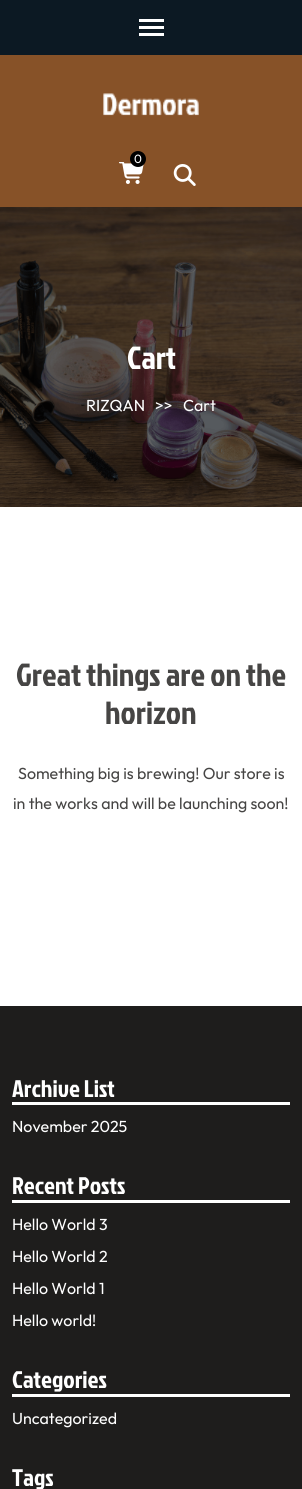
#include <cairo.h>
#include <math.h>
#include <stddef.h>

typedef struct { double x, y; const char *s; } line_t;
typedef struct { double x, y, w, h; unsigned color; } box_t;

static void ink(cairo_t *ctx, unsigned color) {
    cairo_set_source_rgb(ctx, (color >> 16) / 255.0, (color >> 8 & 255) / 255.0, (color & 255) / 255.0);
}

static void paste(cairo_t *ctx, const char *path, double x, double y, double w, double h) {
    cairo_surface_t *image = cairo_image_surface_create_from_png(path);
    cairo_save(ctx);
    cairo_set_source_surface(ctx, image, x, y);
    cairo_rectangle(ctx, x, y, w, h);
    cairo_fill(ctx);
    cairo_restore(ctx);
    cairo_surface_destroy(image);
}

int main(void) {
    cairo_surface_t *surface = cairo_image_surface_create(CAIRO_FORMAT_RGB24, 302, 1489);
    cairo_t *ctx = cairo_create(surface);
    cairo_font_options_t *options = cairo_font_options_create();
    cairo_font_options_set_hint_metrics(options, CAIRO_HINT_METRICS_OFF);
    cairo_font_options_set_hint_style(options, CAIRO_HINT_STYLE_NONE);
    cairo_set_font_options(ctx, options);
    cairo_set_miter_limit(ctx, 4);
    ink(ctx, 0xFFFFFF);
    cairo_paint(ctx);
    {
        static const box_t items[] = {
            {0, 0, 302, 55, 0x0C1923},
            {139, 19, 25, 3, 0xFFFFFF},
            {139, 26, 25, 3, 0xFFFFFF},
            {139, 33, 25, 3, 0xFFFFFF},
            {0, 55, 302, 152, 0x875228},
        };
        for (size_t i = 0; i < sizeof items / sizeof *items; i++) {
            ink(ctx, items[i].color);
            cairo_rectangle(ctx, items[i].x, items[i].y, items[i].w, items[i].h);
            cairo_fill(ctx);
        }
    }
    paste(ctx, "media/1.png", 103, 93, 96, 23);
    paste(ctx, "media/2.png", 119, 162, 25, 22);
    ink(ctx, 0x000000);
    cairo_arc(ctx, 138, 159, 8, 0, 2 * M_PI);
    cairo_fill(ctx);
    cairo_select_font_face(ctx, "Outfit", CAIRO_FONT_SLANT_NORMAL, CAIRO_FONT_WEIGHT_NORMAL);
    cairo_set_font_size(ctx, 12);
    ink(ctx, 0xFFFFFF);
    cairo_move_to(ctx, 134, 163);
    cairo_show_text(ctx, "0");
    paste(ctx, "media/3.png", 173, 164, 23, 22);
    paste(ctx, "media/4.png", 0, 207, 302, 300);
    cairo_select_font_face(ctx, "Jockey One", CAIRO_FONT_SLANT_NORMAL, CAIRO_FONT_WEIGHT_NORMAL);
    cairo_set_font_size(ctx, 32);
    cairo_move_to(ctx, 127, 369);
    cairo_show_text(ctx, "Cart");
    cairo_select_font_face(ctx, "Outfit", CAIRO_FONT_SLANT_NORMAL, CAIRO_FONT_WEIGHT_NORMAL);
    cairo_set_font_size(ctx, 16);
    {
        static const line_t items[] = {
            {86, 411, "RIZQAN"},
            {155, 411, ">>"},
            {183, 411, "Cart"},
        };
        for (size_t i = 0; i < sizeof items / sizeof *items; i++) {
            cairo_move_to(ctx, items[i].x, items[i].y);
            cairo_show_text(ctx, items[i].s);
        }
    }
    cairo_select_font_face(ctx, "Jockey One", CAIRO_FONT_SLANT_NORMAL, CAIRO_FONT_WEIGHT_NORMAL);
    cairo_set_font_size(ctx, 32);
    ink(ctx, 0x464544);
    cairo_move_to(ctx, 16, 686);
    cairo_show_text(ctx, "Great things are on the");
    cairo_move_to(ctx, 105, 724);
    cairo_show_text(ctx, "horizon");
    cairo_select_font_face(ctx, "Outfit", CAIRO_FONT_SLANT_NORMAL, CAIRO_FONT_WEIGHT_NORMAL);
    cairo_set_font_size(ctx, 16);
    cairo_move_to(ctx, 18, 779);
    cairo_show_text(ctx, "Something big is brewing! Our store is");
    cairo_move_to(ctx, 13, 809);
    cairo_show_text(ctx, "in the works and will be launching soon!");
    ink(ctx, 0x1E1D1C);
    cairo_rectangle(ctx, 0, 1006, 302, 483);
    cairo_fill(ctx);
    ink(ctx, 0xFFFFFF);
    cairo_rectangle(ctx, 12, 1102, 278, 3);
    cairo_fill(ctx);
    cairo_select_font_face(ctx, "Jockey One", CAIRO_FONT_SLANT_NORMAL, CAIRO_FONT_WEIGHT_NORMAL);
    cairo_set_font_size(ctx, 24);
    cairo_move_to(ctx, 12, 1097);
    cairo_show_text(ctx, "Archive List");
    cairo_select_font_face(ctx, "Outfit", CAIRO_FONT_SLANT_NORMAL, CAIRO_FONT_WEIGHT_NORMAL);
    cairo_set_font_size(ctx, 16);
    cairo_move_to(ctx, 12, 1132);
    cairo_show_text(ctx, "November 2025");
    cairo_rectangle(ctx, 12, 1200, 278, 3);
    cairo_fill(ctx);
    cairo_select_font_face(ctx, "Jockey One", CAIRO_FONT_SLANT_NORMAL, CAIRO_FONT_WEIGHT_NORMAL);
    cairo_set_font_size(ctx, 24);
    cairo_move_to(ctx, 12, 1194);
    cairo_show_text(ctx, "Recent Posts");
    cairo_select_font_face(ctx, "Outfit", CAIRO_FONT_SLANT_NORMAL, CAIRO_FONT_WEIGHT_NORMAL);
    cairo_set_font_size(ctx, 16);
    {
        static const line_t items[] = {
            {12, 1230, "Hello World 3"},
            {12, 1262, "Hello World 2"},
            {12, 1294, "Hello World 1"},
            {12, 1326, "Hello world!"},
        };
        for (size_t i = 0; i < sizeof items / sizeof *items; i++) {
            cairo_move_to(ctx, items[i].x, items[i].y);
            cairo_show_text(ctx, items[i].s);
        }
    }
    cairo_rectangle(ctx, 12, 1394, 278, 3);
    cairo_fill(ctx);
    cairo_select_font_face(ctx, "Jockey One", CAIRO_FONT_SLANT_NORMAL, CAIRO_FONT_WEIGHT_NORMAL);
    cairo_set_font_size(ctx, 24);
    cairo_move_to(ctx, 12, 1388);
    cairo_show_text(ctx, "Categories");
    cairo_select_font_face(ctx, "Outfit", CAIRO_FONT_SLANT_NORMAL, CAIRO_FONT_WEIGHT_NORMAL);
    cairo_set_font_size(ctx, 16);
    cairo_move_to(ctx, 12, 1424);
    cairo_show_text(ctx, "Uncategorized");
    cairo_select_font_face(ctx, "Jockey One", CAIRO_FONT_SLANT_NORMAL, CAIRO_FONT_WEIGHT_NORMAL);
    cairo_set_font_size(ctx, 24);
    cairo_move_to(ctx, 12, 1486);
    cairo_show_text(ctx, "Tags");
    cairo_surface_write_to_png(surface, "image.png");
    cairo_font_options_destroy(options);
    cairo_destroy(ctx);
    cairo_surface_destroy(surface);
    return 0;
}
